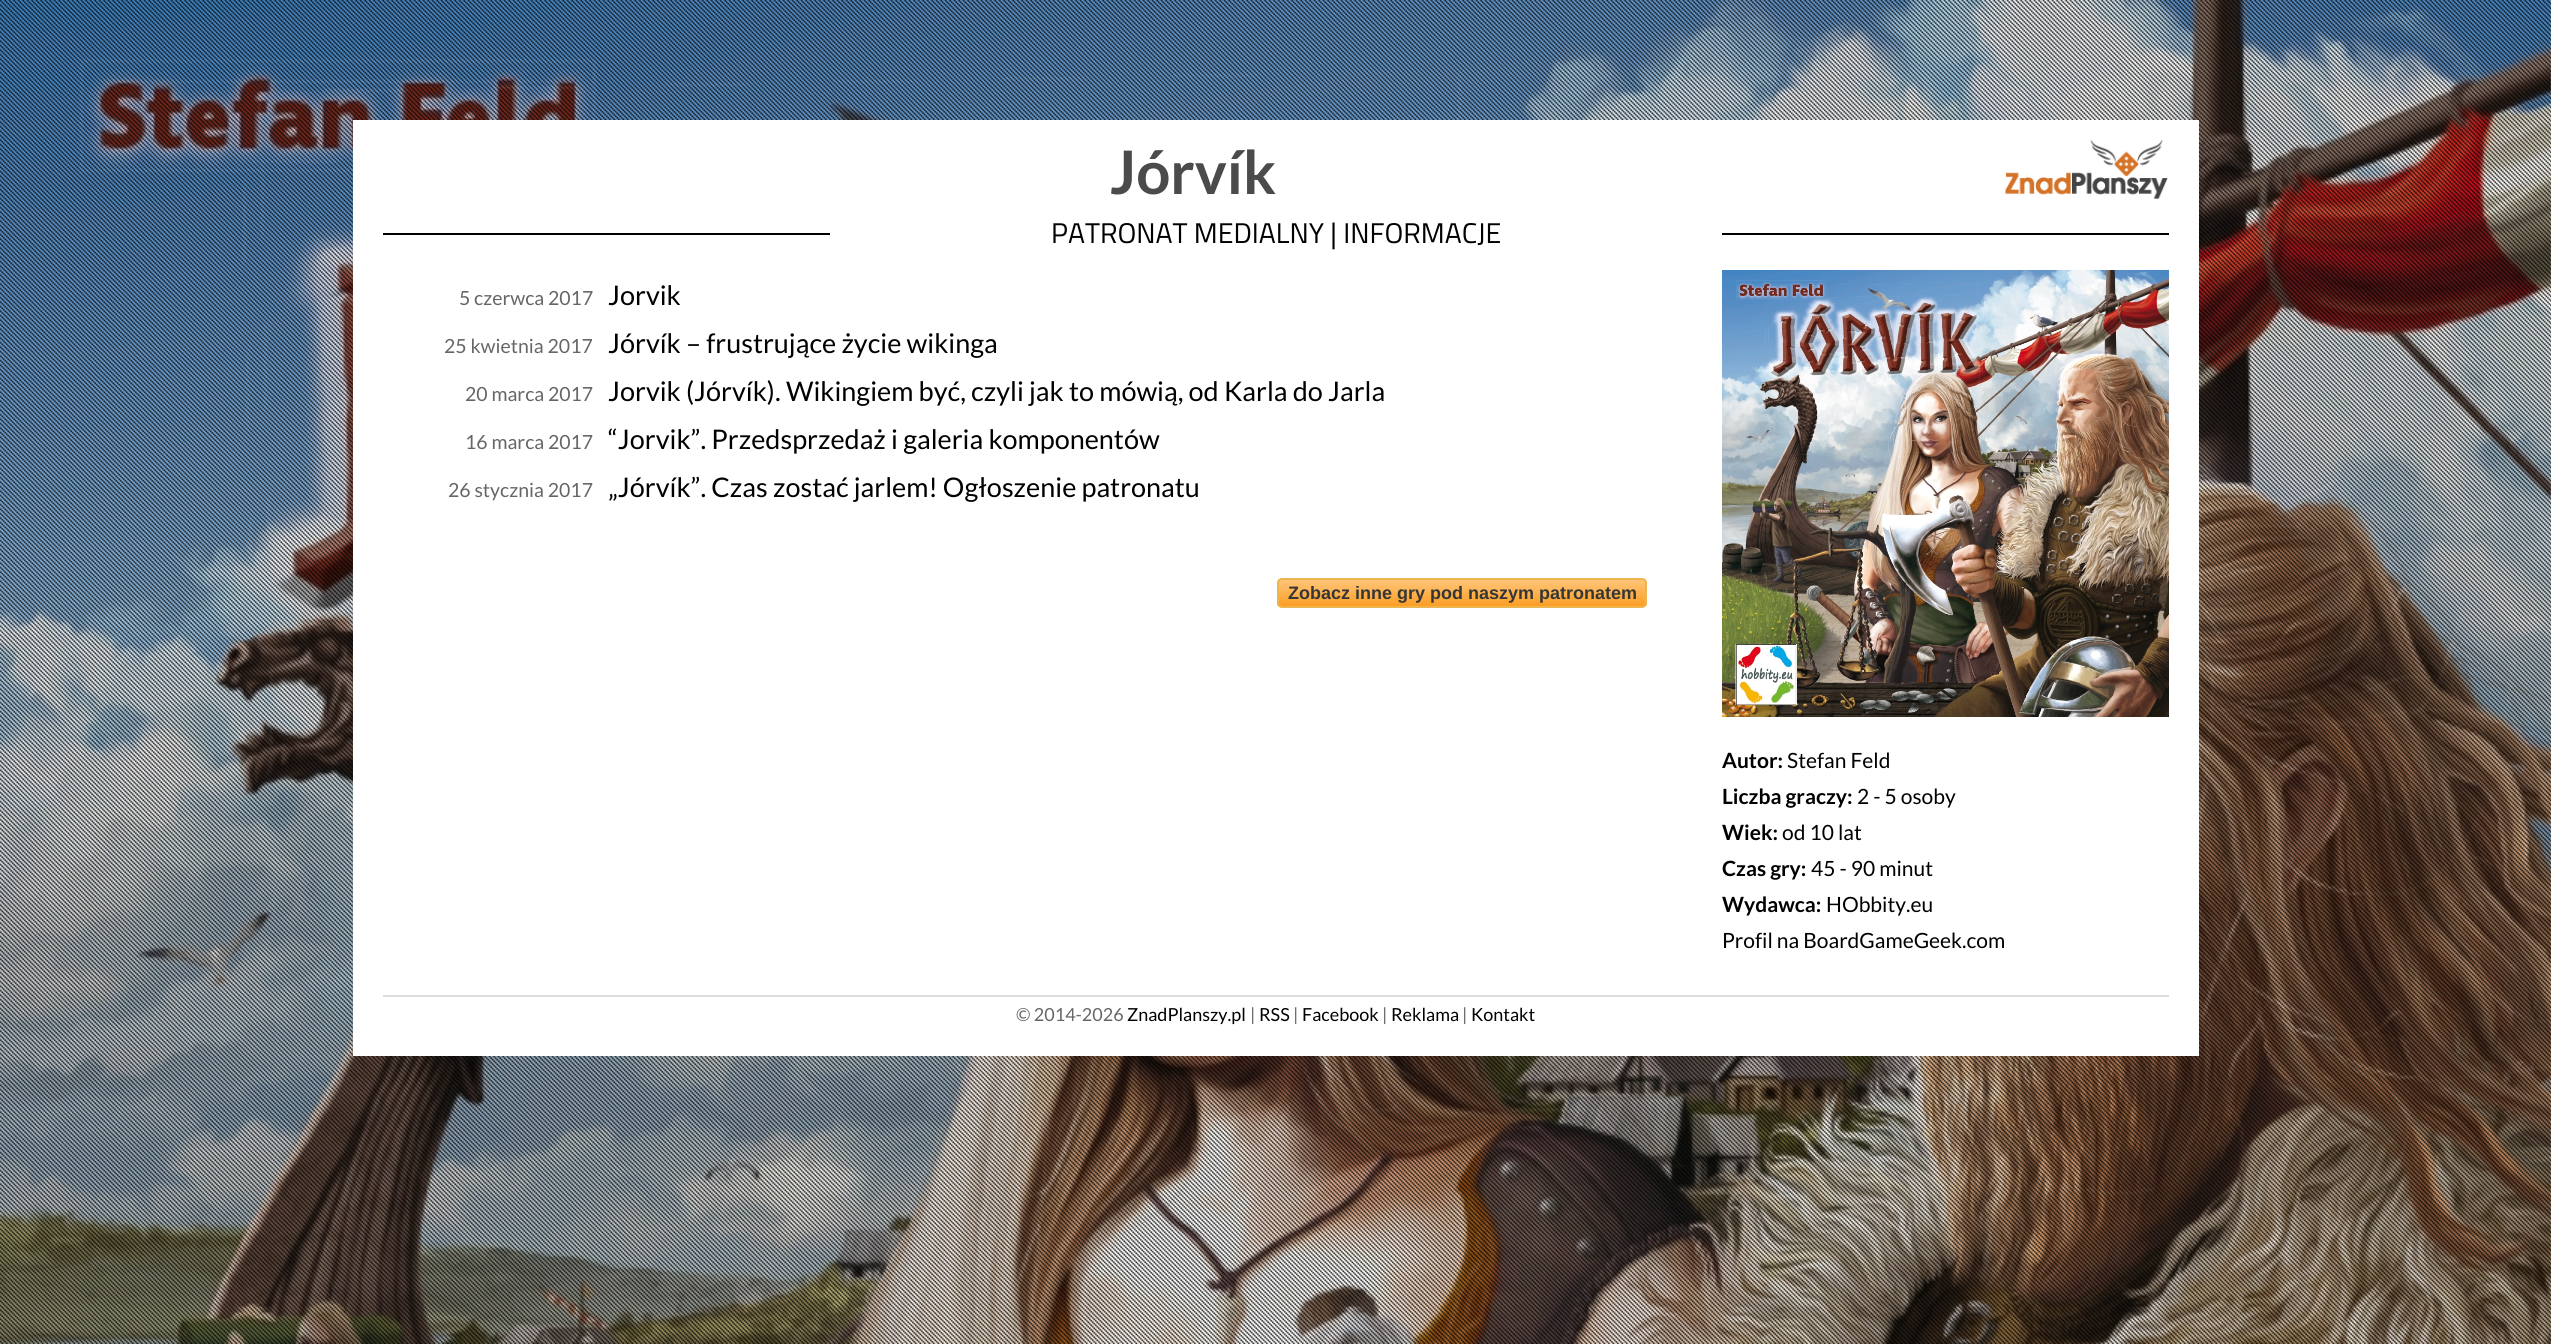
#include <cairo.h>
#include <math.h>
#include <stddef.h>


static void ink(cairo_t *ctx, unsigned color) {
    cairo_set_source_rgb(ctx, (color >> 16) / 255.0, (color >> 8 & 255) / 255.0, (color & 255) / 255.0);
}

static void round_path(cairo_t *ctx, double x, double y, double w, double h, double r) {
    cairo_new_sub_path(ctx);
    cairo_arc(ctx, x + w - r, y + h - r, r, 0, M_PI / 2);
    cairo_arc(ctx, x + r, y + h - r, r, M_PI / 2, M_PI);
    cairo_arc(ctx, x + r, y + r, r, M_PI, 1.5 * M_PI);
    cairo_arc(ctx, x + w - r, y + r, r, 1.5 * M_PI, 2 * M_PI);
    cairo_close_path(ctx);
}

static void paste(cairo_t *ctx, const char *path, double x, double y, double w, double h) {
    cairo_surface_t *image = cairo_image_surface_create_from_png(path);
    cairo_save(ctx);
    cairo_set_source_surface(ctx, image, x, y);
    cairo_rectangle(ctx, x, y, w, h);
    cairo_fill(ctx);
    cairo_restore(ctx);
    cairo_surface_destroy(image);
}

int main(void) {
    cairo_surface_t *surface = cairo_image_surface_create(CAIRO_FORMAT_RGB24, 2551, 1344);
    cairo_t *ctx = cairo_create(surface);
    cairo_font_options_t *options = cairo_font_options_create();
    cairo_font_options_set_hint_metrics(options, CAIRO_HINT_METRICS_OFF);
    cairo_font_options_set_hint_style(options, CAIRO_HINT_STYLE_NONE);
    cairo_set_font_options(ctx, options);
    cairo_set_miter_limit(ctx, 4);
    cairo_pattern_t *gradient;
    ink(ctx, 0xFFFFFF);
    cairo_paint(ctx);
    paste(ctx, "media/1.png", 0, 0, 2551, 1344);
    paste(ctx, "media/2.png", 0, 0, 2551, 1344);
    ink(ctx, 0xFFFFFF);
    cairo_rectangle(ctx, 353, 120, 1846, 936);
    cairo_fill(ctx);
    cairo_select_font_face(ctx, "Lato", CAIRO_FONT_SLANT_NORMAL, CAIRO_FONT_WEIGHT_BOLD);
    cairo_set_font_size(ctx, 60);
    ink(ctx, 0x4B4B4B);
    cairo_move_to(ctx, 1110, 194);
    cairo_show_text(ctx, "Jórvík");
    paste(ctx, "media/3.png", 2005, 139, 163, 60);
    ink(ctx, 0x000000);
    cairo_rectangle(ctx, 383, 233, 447, 2);
    cairo_fill(ctx);
    cairo_select_font_face(ctx, "Titillium Web", CAIRO_FONT_SLANT_NORMAL, CAIRO_FONT_WEIGHT_NORMAL);
    cairo_set_font_size(ctx, 28.5);
    cairo_move_to(ctx, 1051, 243);
    cairo_show_text(ctx, "PATRONAT MEDIALNY | INFORMACJE");
    cairo_rectangle(ctx, 1722, 233, 447, 2);
    cairo_fill(ctx);
    cairo_select_font_face(ctx, "Lato", CAIRO_FONT_SLANT_NORMAL, CAIRO_FONT_WEIGHT_NORMAL);
    cairo_set_font_size(ctx, 19.5);
    ink(ctx, 0x666666);
    cairo_move_to(ctx, 459, 305);
    cairo_show_text(ctx, "5 czerwca 2017");
    cairo_set_font_size(ctx, 27);
    ink(ctx, 0x000000);
    cairo_move_to(ctx, 608, 305);
    cairo_show_text(ctx, "Jorvik");
    cairo_set_font_size(ctx, 19.5);
    ink(ctx, 0x666666);
    cairo_move_to(ctx, 444, 353);
    cairo_show_text(ctx, "25 kwietnia 2017");
    cairo_set_font_size(ctx, 27);
    ink(ctx, 0x000000);
    cairo_move_to(ctx, 608, 353);
    cairo_show_text(ctx, "Jórvík – frustrujące życie wikinga");
    cairo_set_font_size(ctx, 19.5);
    ink(ctx, 0x666666);
    cairo_move_to(ctx, 465, 401);
    cairo_show_text(ctx, "20 marca 2017");
    cairo_set_font_size(ctx, 27);
    ink(ctx, 0x000000);
    cairo_move_to(ctx, 608, 401);
    cairo_show_text(ctx, "Jorvik (Jórvík). Wikingiem być, czyli jak to mówią, od Karla do Jarla");
    cairo_set_font_size(ctx, 19.5);
    ink(ctx, 0x666666);
    cairo_move_to(ctx, 465, 449);
    cairo_show_text(ctx, "16 marca 2017");
    cairo_set_font_size(ctx, 27);
    ink(ctx, 0x000000);
    cairo_move_to(ctx, 608, 449);
    cairo_show_text(ctx, "“Jorvik”. Przedsprzedaż i galeria komponentów");
    cairo_set_font_size(ctx, 19.5);
    ink(ctx, 0x666666);
    cairo_move_to(ctx, 448, 497);
    cairo_show_text(ctx, "26 stycznia 2017");
    cairo_set_font_size(ctx, 27);
    ink(ctx, 0x000000);
    cairo_move_to(ctx, 608, 497);
    cairo_show_text(ctx, "„Jórvík”. Czas zostać jarlem! Ogłoszenie patronatu");
    cairo_save(ctx);
    round_path(ctx, 1277, 578, 370, 30, 5);
    cairo_clip(ctx);
    gradient = cairo_pattern_create_linear(1462, 579, 1462, 606);
    cairo_pattern_add_color_stop_rgba(gradient, 0.05, 1, 0.769, 0.467, 1);
    cairo_pattern_add_color_stop_rgba(gradient, 1, 0.984, 0.62, 0.145, 1);
    cairo_set_source(ctx, gradient);
    cairo_pattern_destroy(gradient);
    cairo_rectangle(ctx, 1277, 579, 370, 27);
    cairo_fill(ctx);
    cairo_restore(ctx);
    round_path(ctx, 1278, 579, 368, 28, 4);
    ink(ctx, 0xEEB44F);
    cairo_stroke(ctx);
    cairo_select_font_face(ctx, "Liberation Sans", CAIRO_FONT_SLANT_NORMAL, CAIRO_FONT_WEIGHT_BOLD);
    cairo_set_font_size(ctx, 18);
    ink(ctx, 0x363636);
    cairo_move_to(ctx, 1288, 599);
    cairo_show_text(ctx, "Zobacz inne gry pod naszym patronatem");
    paste(ctx, "media/4.png", 1722, 270, 447, 447);
    cairo_select_font_face(ctx, "Lato", CAIRO_FONT_SLANT_NORMAL, CAIRO_FONT_WEIGHT_BOLD);
    cairo_set_font_size(ctx, 21);
    ink(ctx, 0x000000);
    cairo_move_to(ctx, 1722, 768);
    cairo_show_text(ctx, "Autor:");
    cairo_select_font_face(ctx, "Lato", CAIRO_FONT_SLANT_NORMAL, CAIRO_FONT_WEIGHT_NORMAL);
    cairo_move_to(ctx, 1787, 768);
    cairo_show_text(ctx, "Stefan Feld");
    cairo_select_font_face(ctx, "Lato", CAIRO_FONT_SLANT_NORMAL, CAIRO_FONT_WEIGHT_BOLD);
    cairo_move_to(ctx, 1722, 804);
    cairo_show_text(ctx, "Liczba graczy:");
    cairo_select_font_face(ctx, "Lato", CAIRO_FONT_SLANT_NORMAL, CAIRO_FONT_WEIGHT_NORMAL);
    cairo_move_to(ctx, 1857, 804);
    cairo_show_text(ctx, "2 - 5 osoby");
    cairo_select_font_face(ctx, "Lato", CAIRO_FONT_SLANT_NORMAL, CAIRO_FONT_WEIGHT_BOLD);
    cairo_move_to(ctx, 1722, 840);
    cairo_show_text(ctx, "Wiek:");
    cairo_select_font_face(ctx, "Lato", CAIRO_FONT_SLANT_NORMAL, CAIRO_FONT_WEIGHT_NORMAL);
    cairo_move_to(ctx, 1782, 840);
    cairo_show_text(ctx, "od 10 lat");
    cairo_select_font_face(ctx, "Lato", CAIRO_FONT_SLANT_NORMAL, CAIRO_FONT_WEIGHT_BOLD);
    cairo_move_to(ctx, 1722, 876);
    cairo_show_text(ctx, "Czas gry:");
    cairo_select_font_face(ctx, "Lato", CAIRO_FONT_SLANT_NORMAL, CAIRO_FONT_WEIGHT_NORMAL);
    cairo_move_to(ctx, 1811, 876);
    cairo_show_text(ctx, "45 - 90 minut");
    cairo_select_font_face(ctx, "Lato", CAIRO_FONT_SLANT_NORMAL, CAIRO_FONT_WEIGHT_BOLD);
    cairo_move_to(ctx, 1722, 912);
    cairo_show_text(ctx, "Wydawca:");
    cairo_select_font_face(ctx, "Lato", CAIRO_FONT_SLANT_NORMAL, CAIRO_FONT_WEIGHT_NORMAL);
    cairo_move_to(ctx, 1826, 912);
    cairo_show_text(ctx, "HObbity.eu");
    cairo_move_to(ctx, 1722, 948);
    cairo_show_text(ctx, "Profil na BoardGameGeek.com");
    ink(ctx, 0xDDDDDD);
    cairo_rectangle(ctx, 383, 995, 1786, 2);
    cairo_fill(ctx);
    cairo_set_font_size(ctx, 18);
    ink(ctx, 0x666666);
    cairo_move_to(ctx, 1016, 1021);
    cairo_show_text(ctx, "© 2014-2026");
    ink(ctx, 0x000000);
    cairo_move_to(ctx, 1127, 1021);
    cairo_show_text(ctx, "ZnadPlanszy.pl");
    ink(ctx, 0x666666);
    cairo_move_to(ctx, 1250, 1021);
    cairo_show_text(ctx, "|");
    ink(ctx, 0x000000);
    cairo_move_to(ctx, 1259, 1021);
    cairo_show_text(ctx, "RSS");
    ink(ctx, 0x666666);
    cairo_move_to(ctx, 1293, 1021);
    cairo_show_text(ctx, "|");
    ink(ctx, 0x000000);
    cairo_move_to(ctx, 1302, 1021);
    cairo_show_text(ctx, "Facebook");
    ink(ctx, 0x666666);
    cairo_move_to(ctx, 1382, 1021);
    cairo_show_text(ctx, "|");
    ink(ctx, 0x000000);
    cairo_move_to(ctx, 1391, 1021);
    cairo_show_text(ctx, "Reklama");
    ink(ctx, 0x666666);
    cairo_move_to(ctx, 1462, 1021);
    cairo_show_text(ctx, "|");
    ink(ctx, 0x000000);
    cairo_move_to(ctx, 1471, 1021);
    cairo_show_text(ctx, "Kontakt");
    cairo_surface_write_to_png(surface, "image.png");
    cairo_font_options_destroy(options);
    cairo_destroy(ctx);
    cairo_surface_destroy(surface);
    return 0;
}
